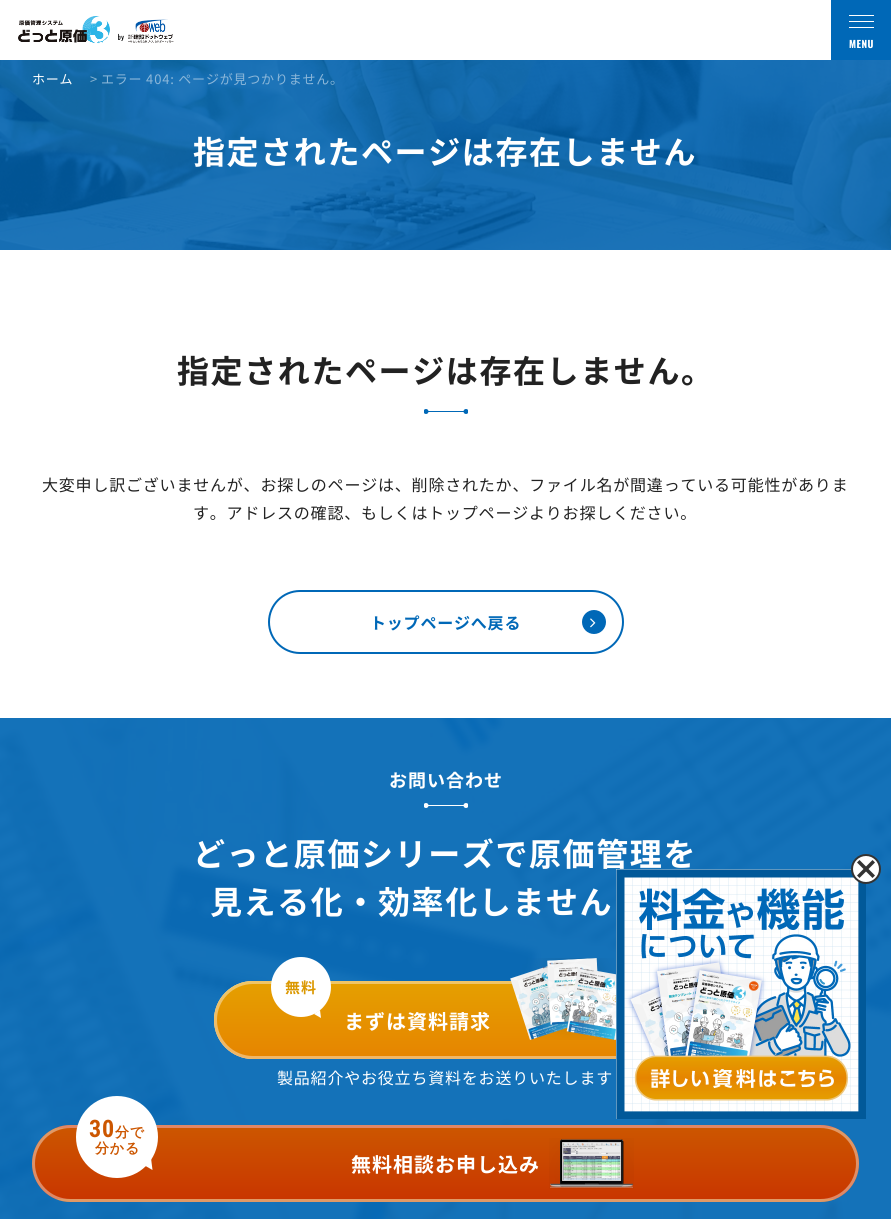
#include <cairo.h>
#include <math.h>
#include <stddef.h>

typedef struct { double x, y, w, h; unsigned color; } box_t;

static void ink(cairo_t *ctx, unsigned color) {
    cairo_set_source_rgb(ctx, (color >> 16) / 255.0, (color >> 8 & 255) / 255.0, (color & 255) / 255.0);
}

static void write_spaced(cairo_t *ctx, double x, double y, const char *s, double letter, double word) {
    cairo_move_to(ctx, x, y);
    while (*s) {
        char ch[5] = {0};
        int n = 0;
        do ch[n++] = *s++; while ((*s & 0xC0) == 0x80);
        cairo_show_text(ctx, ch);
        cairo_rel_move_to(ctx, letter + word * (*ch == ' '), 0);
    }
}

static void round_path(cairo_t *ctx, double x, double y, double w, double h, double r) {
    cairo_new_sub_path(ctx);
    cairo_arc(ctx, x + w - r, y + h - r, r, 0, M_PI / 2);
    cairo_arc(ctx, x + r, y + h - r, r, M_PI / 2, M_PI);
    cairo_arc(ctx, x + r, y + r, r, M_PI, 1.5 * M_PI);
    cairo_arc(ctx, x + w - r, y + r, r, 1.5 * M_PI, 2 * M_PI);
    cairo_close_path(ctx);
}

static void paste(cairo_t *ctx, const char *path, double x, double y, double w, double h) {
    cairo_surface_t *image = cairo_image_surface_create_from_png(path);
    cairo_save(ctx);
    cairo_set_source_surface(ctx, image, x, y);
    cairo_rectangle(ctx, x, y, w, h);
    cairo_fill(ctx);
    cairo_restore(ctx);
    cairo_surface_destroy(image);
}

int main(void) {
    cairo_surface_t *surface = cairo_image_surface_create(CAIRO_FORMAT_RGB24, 891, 1219);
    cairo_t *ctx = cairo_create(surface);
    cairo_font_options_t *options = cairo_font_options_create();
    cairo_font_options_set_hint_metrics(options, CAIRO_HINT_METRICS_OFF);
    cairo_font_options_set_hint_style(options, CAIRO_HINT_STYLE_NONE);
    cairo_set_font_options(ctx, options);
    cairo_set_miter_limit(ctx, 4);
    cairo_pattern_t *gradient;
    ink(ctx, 0xFFFFFF);
    cairo_paint(ctx);
    paste(ctx, "media/1.png", 18, 16, 156, 28);
    {
        static const box_t items[] = {
            {831, 0, 60, 60, 0x0068B7},
            {849, 15, 25, 1, 0xFFFFFF},
            {849, 21, 25, 1, 0xFFFFFF},
            {849, 27, 25, 1, 0xFFFFFF},
        };
        for (size_t i = 0; i < sizeof items / sizeof *items; i++) {
            ink(ctx, items[i].color);
            cairo_rectangle(ctx, items[i].x, items[i].y, items[i].w, items[i].h);
            cairo_fill(ctx);
        }
    }
    cairo_select_font_face(ctx, "Oswald", CAIRO_FONT_SLANT_NORMAL, CAIRO_FONT_WEIGHT_BOLD);
    cairo_set_font_size(ctx, 10);
    write_spaced(ctx, 849, 48, "MENU", 0.5, 0);
    paste(ctx, "media/2.png", 0, 60, 891, 190);
    cairo_select_font_face(ctx, "Noto Sans JP", CAIRO_FONT_SLANT_NORMAL, CAIRO_FONT_WEIGHT_NORMAL);
    cairo_set_font_size(ctx, 13);
    write_spaced(ctx, 32, 84, "ホーム", 0.8, 0);
    ink(ctx, 0x88B3D1);
    write_spaced(ctx, 90, 84, ">", 0.8, 0);
    ink(ctx, 0x8CB7D9);
    write_spaced(ctx, 101, 84, "エラー 404: ページが見つかりません。", 0.8, 0);
    cairo_select_font_face(ctx, "Noto Sans JP", CAIRO_FONT_SLANT_NORMAL, CAIRO_FONT_WEIGHT_BOLD);
    cairo_set_font_size(ctx, 32);
    ink(ctx, 0xFFFFFF);
    write_spaced(ctx, 193, 164, "指定されたページは存在しません", 1.6, 0);
    ink(ctx, 0x222222);
    write_spaced(ctx, 177, 383, "指定されたページは存在しません。", 1.6, 0);
    ink(ctx, 0x0068B7);
    cairo_rectangle(ctx, 427, 411, 38, 1);
    cairo_fill(ctx);
    cairo_save(ctx);
    cairo_rectangle(ctx, 424, 409, 44, 5);
    cairo_clip(ctx);
    cairo_arc(ctx, 426, 411.5, 2.5, 0, 2 * M_PI);
    cairo_fill(ctx);
    cairo_arc(ctx, 466, 411.5, 2.5, 0, 2 * M_PI);
    cairo_fill(ctx);
    cairo_restore(ctx);
    cairo_select_font_face(ctx, "Noto Sans JP", CAIRO_FONT_SLANT_NORMAL, CAIRO_FONT_WEIGHT_NORMAL);
    cairo_set_font_size(ctx, 16);
    ink(ctx, 0x222222);
    write_spaced(ctx, 42, 491, "大変申し訳ございませんが、お探しのページは、削除されたか、ファイル名が間違っている可能性がありま", 0.8, 0);
    write_spaced(ctx, 193, 519, "す。アドレスの確認、もしくはトップページよりお探しください。", 0.8, 0);
    round_path(ctx, 269, 591, 354, 62, 31);
    ink(ctx, 0x0068B7);
    cairo_stroke(ctx);
    cairo_select_font_face(ctx, "Noto Sans JP", CAIRO_FONT_SLANT_NORMAL, CAIRO_FONT_WEIGHT_BOLD);
    write_spaced(ctx, 370, 629, "トップページへ戻る", 0.8, 0);
    cairo_new_path(ctx);
    cairo_arc(ctx, 594, 622, 12, 0, 2 * M_PI);
    cairo_fill(ctx);
    paste(ctx, "media/3.png", 590, 618, 6, 10);
    paste(ctx, "media/4.png", 0, 718, 891, 501);
    cairo_set_font_size(ctx, 18);
    ink(ctx, 0xFFFFFF);
    write_spaced(ctx, 389, 787, "お問い合わせ", 1, 0);
    cairo_rectangle(ctx, 427, 805, 38, 1);
    cairo_fill(ctx);
    cairo_save(ctx);
    cairo_rectangle(ctx, 424, 803, 44, 5);
    cairo_clip(ctx);
    cairo_arc(ctx, 426, 805.5, 2.5, 0, 2 * M_PI);
    cairo_fill(ctx);
    cairo_arc(ctx, 466, 805.5, 2.5, 0, 2 * M_PI);
    cairo_fill(ctx);
    cairo_restore(ctx);
    cairo_set_font_size(ctx, 32);
    write_spaced(ctx, 193, 866, "どっと原価シリーズで原価管理を", 1.6, 0);
    write_spaced(ctx, 210, 914, "見える化・効率化しません", 1.6, 0);
    round_path(ctx, 214, 981, 464, 78, 39);
    cairo_fill(ctx);
    cairo_save(ctx);
    round_path(ctx, 214, 981, 464, 78, 39);
    cairo_clip(ctx);
    gradient = cairo_pattern_create_linear(446, 840, 446, 984);
    cairo_pattern_add_color_stop_rgba(gradient, 0, 0.898, 0.624, 0, 1);
    cairo_pattern_add_color_stop_rgba(gradient, 0.5, 0.902, 0.522, 0, 1);
    cairo_pattern_add_color_stop_rgba(gradient, 1, 0.898, 0.624, 0, 1);
    cairo_set_source(ctx, gradient);
    cairo_pattern_destroy(gradient);
    cairo_rectangle(ctx, 238, 981, 274, 3);
    cairo_fill(ctx);
    gradient = cairo_pattern_create_linear(446, 984, 446, 1128);
    cairo_pattern_add_color_stop_rgba(gradient, 0, 0.898, 0.624, 0, 1);
    cairo_pattern_add_color_stop_rgba(gradient, 0.5, 0.902, 0.522, 0, 1);
    cairo_pattern_add_color_stop_rgba(gradient, 1, 0.898, 0.624, 0, 1);
    cairo_set_source(ctx, gradient);
    cairo_pattern_destroy(gradient);
    cairo_new_path(ctx);
    cairo_move_to(ctx, 214, 984);
    cairo_line_to(ctx, 678, 984);
    cairo_line_to(ctx, 678, 1020);
    cairo_curve_to(ctx, 678, 1041.5, 660.5, 1059, 639, 1059);
    cairo_line_to(ctx, 253, 1059);
    cairo_curve_to(ctx, 231.5, 1059, 214, 1041.5, 214, 1020);
    cairo_close_path(ctx);
    cairo_fill(ctx);
    cairo_restore(ctx);
    round_path(ctx, 215.5, 982.5, 461, 75, 37.5);
    cairo_set_source_rgba(ctx, 1, 1, 1, 0.4);
    cairo_set_line_width(ctx, 3);
    cairo_stroke(ctx);
    ink(ctx, 0xFFFFFF);
    cairo_arc(ctx, 301, 987, 30, 0, 2 * M_PI);
    cairo_fill(ctx);
    cairo_set_font_size(ctx, 15);
    ink(ctx, 0xDB9800);
    write_spaced(ctx, 285, 993, "無料", 1, 0);
    ink(ctx, 0xFFFFFF);
    cairo_new_path(ctx);
    cairo_move_to(ctx, 321, 1018);
    cairo_line_to(ctx, 314, 1014);
    cairo_line_to(ctx, 320, 1010);
    cairo_close_path(ctx);
    cairo_fill(ctx);
    paste(ctx, "media/5.png", 510, 958, 106, 82);
    cairo_set_font_size(ctx, 20);
    write_spaced(ctx, 344, 1029, "まずは資料請求", 1, 0);
    cairo_select_font_face(ctx, "Noto Sans JP", CAIRO_FONT_SLANT_NORMAL, CAIRO_FONT_WEIGHT_NORMAL);
    cairo_set_font_size(ctx, 16);
    write_spaced(ctx, 277, 1084, "製品紹介やお役立ち資料をお送りいたします", 0.8, 0);
    cairo_save(ctx);
    round_path(ctx, 32, 1125, 827, 77, 38.5);
    cairo_clip(ctx);
    gradient = cairo_pattern_create_linear(446, 1057, 446, 1128);
    cairo_pattern_add_color_stop_rgba(gradient, 0, 0.8, 0.337, 0, 1);
    cairo_pattern_add_color_stop_rgba(gradient, 1, 0.788, 0.212, 0, 1);
    cairo_set_source(ctx, gradient);
    cairo_pattern_destroy(gradient);
    cairo_rectangle(ctx, 55, 1125, 781, 3);
    cairo_fill(ctx);
    gradient = cairo_pattern_create_linear(446, 1128, 446, 1199);
    cairo_pattern_add_color_stop_rgba(gradient, 0, 0.8, 0.337, 0, 1);
    cairo_pattern_add_color_stop_rgba(gradient, 1, 0.788, 0.212, 0, 1);
    cairo_set_source(ctx, gradient);
    cairo_pattern_destroy(gradient);
    cairo_rectangle(ctx, 32, 1128, 827, 71);
    cairo_fill(ctx);
    gradient = cairo_pattern_create_linear(446, 1199, 446, 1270);
    cairo_pattern_add_color_stop_rgba(gradient, 0, 0.8, 0.337, 0, 1);
    cairo_pattern_add_color_stop_rgba(gradient, 1, 0.788, 0.212, 0, 1);
    cairo_set_source(ctx, gradient);
    cairo_pattern_destroy(gradient);
    cairo_rectangle(ctx, 55, 1199, 781, 3);
    cairo_fill(ctx);
    cairo_restore(ctx);
    round_path(ctx, 33.5, 1126.5, 824, 74, 37);
    cairo_set_source_rgba(ctx, 1, 1, 1, 0.4);
    cairo_stroke(ctx);
    ink(ctx, 0xFFFFFF);
    cairo_arc(ctx, 117, 1137, 41, 0, 2 * M_PI);
    cairo_fill(ctx);
    cairo_select_font_face(ctx, "Roboto Condensed", CAIRO_FONT_SLANT_NORMAL, CAIRO_FONT_WEIGHT_BOLD);
    cairo_set_font_size(ctx, 24);
    ink(ctx, 0xCC5600);
    write_spaced(ctx, 89, 1137, "30", 0.8, 0);
    cairo_select_font_face(ctx, "WenQuanYi Zen Hei", CAIRO_FONT_SLANT_NORMAL, CAIRO_FONT_WEIGHT_BOLD);
    cairo_set_font_size(ctx, 14);
    write_spaced(ctx, 115, 1137, "分で", 0.8, 0);
    write_spaced(ctx, 95, 1153, "分かる", 0.8, 0);
    ink(ctx, 0xFFFFFF);
    cairo_new_path(ctx);
    cairo_move_to(ctx, 152.5, 1170);
    cairo_line_to(ctx, 142, 1164);
    cairo_line_to(ctx, 151, 1158);
    cairo_close_path(ctx);
    cairo_fill(ctx);
    cairo_select_font_face(ctx, "Noto Sans JP", CAIRO_FONT_SLANT_NORMAL, CAIRO_FONT_WEIGHT_BOLD);
    cairo_set_font_size(ctx, 20);
    write_spaced(ctx, 351, 1172, "無料相談お申し込み", 1, 0);
    paste(ctx, "media/6.png", 549, 1138, 85, 51);
    paste(ctx, "media/7.png", 616, 869, 250, 250);
    cairo_arc(ctx, 866, 869, 14, 0, 2 * M_PI);
    cairo_fill_preserve(ctx);
    ink(ctx, 0x333333);
    cairo_set_line_width(ctx, 2);
    cairo_stroke(ctx);
    cairo_new_path(ctx);
    cairo_move_to(ctx, 872.5, 860);
    cairo_line_to(ctx, 875, 862.5);
    cairo_line_to(ctx, 859.5, 878);
    cairo_line_to(ctx, 857, 875.5);
    cairo_close_path(ctx);
    cairo_fill(ctx);
    cairo_new_path(ctx);
    cairo_move_to(ctx, 857, 862.5);
    cairo_line_to(ctx, 859.5, 860);
    cairo_line_to(ctx, 875, 875.5);
    cairo_line_to(ctx, 872.5, 878);
    cairo_close_path(ctx);
    cairo_fill(ctx);
    cairo_surface_write_to_png(surface, "image.png");
    cairo_font_options_destroy(options);
    cairo_destroy(ctx);
    cairo_surface_destroy(surface);
    return 0;
}
